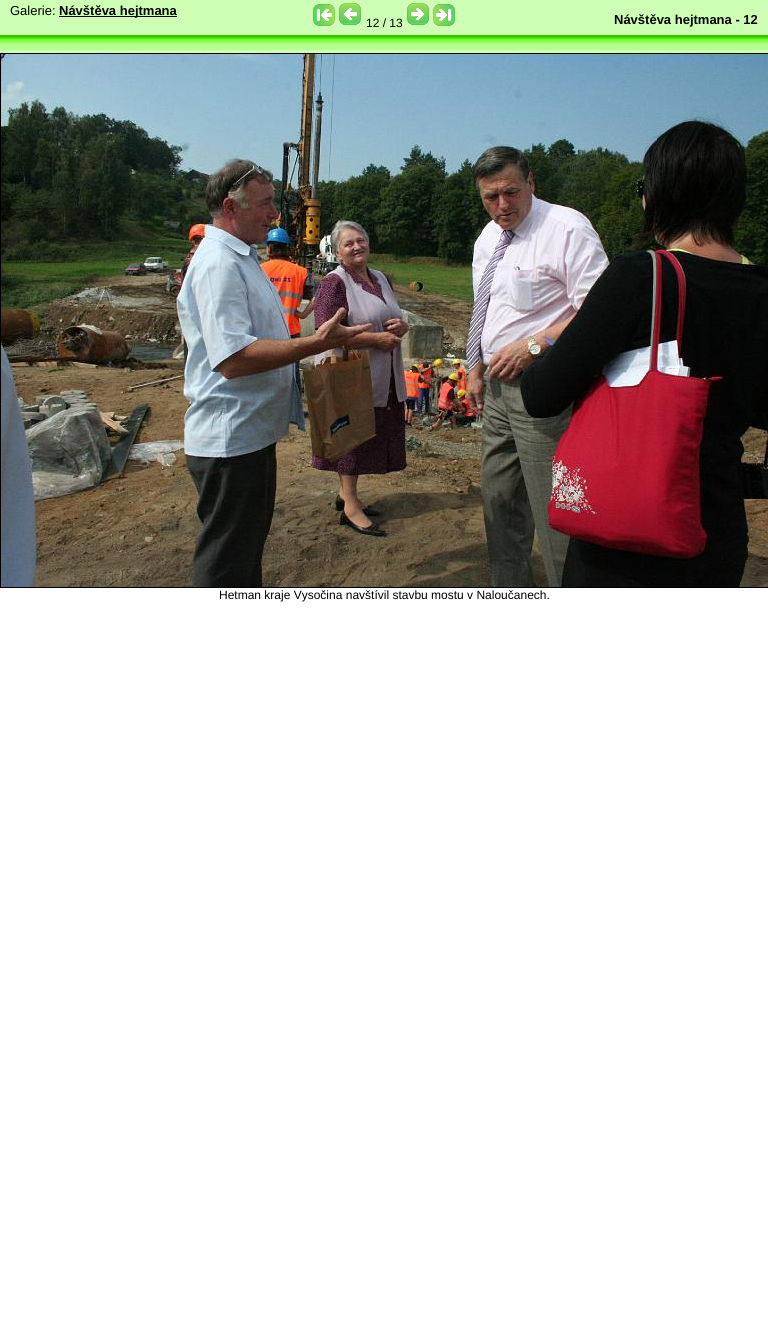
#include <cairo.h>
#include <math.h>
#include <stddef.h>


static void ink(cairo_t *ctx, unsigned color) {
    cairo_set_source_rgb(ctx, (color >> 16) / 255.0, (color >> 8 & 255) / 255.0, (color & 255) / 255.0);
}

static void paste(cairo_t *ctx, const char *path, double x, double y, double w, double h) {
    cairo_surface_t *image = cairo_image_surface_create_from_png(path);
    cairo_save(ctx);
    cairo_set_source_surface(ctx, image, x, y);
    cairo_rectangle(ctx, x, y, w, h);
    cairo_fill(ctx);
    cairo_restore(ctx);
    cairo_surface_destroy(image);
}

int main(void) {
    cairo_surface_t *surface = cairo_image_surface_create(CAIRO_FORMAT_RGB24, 768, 1337);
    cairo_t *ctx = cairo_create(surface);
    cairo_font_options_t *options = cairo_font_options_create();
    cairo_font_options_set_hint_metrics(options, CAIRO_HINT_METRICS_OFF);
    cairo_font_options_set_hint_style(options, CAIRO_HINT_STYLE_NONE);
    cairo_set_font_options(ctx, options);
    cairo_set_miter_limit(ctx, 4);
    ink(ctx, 0xFFFFFF);
    cairo_paint(ctx);
    paste(ctx, "media/1.png", 0, 0, 768, 53);
    cairo_select_font_face(ctx, "Liberation Sans", CAIRO_FONT_SLANT_NORMAL, CAIRO_FONT_WEIGHT_NORMAL);
    cairo_set_font_size(ctx, 13);
    ink(ctx, 0x000000);
    cairo_move_to(ctx, 10, 15);
    cairo_show_text(ctx, "Galerie:");
    cairo_rectangle(ctx, 59, 16, 118, 1);
    cairo_fill(ctx);
    cairo_select_font_face(ctx, "Liberation Sans", CAIRO_FONT_SLANT_NORMAL, CAIRO_FONT_WEIGHT_BOLD);
    cairo_move_to(ctx, 59, 15);
    cairo_show_text(ctx, "Návštěva hejtmana");
    paste(ctx, "media/2.png", 313, 4, 22, 22);
    paste(ctx, "media/3.png", 339, 3, 22, 22);
    paste(ctx, "media/4.png", 407, 3, 22, 22);
    paste(ctx, "media/5.png", 433, 4, 22, 22);
    cairo_select_font_face(ctx, "Liberation Sans", CAIRO_FONT_SLANT_NORMAL, CAIRO_FONT_WEIGHT_NORMAL);
    cairo_set_font_size(ctx, 12);
    cairo_move_to(ctx, 366, 27);
    cairo_show_text(ctx, "12 / 13");
    cairo_select_font_face(ctx, "Liberation Sans", CAIRO_FONT_SLANT_NORMAL, CAIRO_FONT_WEIGHT_BOLD);
    cairo_set_font_size(ctx, 13);
    cairo_move_to(ctx, 614, 24);
    cairo_show_text(ctx, "Návštěva hejtmana - 12");
    cairo_rectangle(ctx, 0.5, 53.5, 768, 534);
    cairo_set_line_width(ctx, 1);
    cairo_stroke(ctx);
    paste(ctx, "media/6.png", 1, 54, 767, 533);
    cairo_select_font_face(ctx, "Liberation Sans", CAIRO_FONT_SLANT_NORMAL, CAIRO_FONT_WEIGHT_NORMAL);
    cairo_set_font_size(ctx, 12);
    cairo_move_to(ctx, 219, 599);
    cairo_show_text(ctx, "Hetman kraje Vysočina navštívil stavbu mostu v Naloučanech.");
    cairo_surface_write_to_png(surface, "image.png");
    cairo_font_options_destroy(options);
    cairo_destroy(ctx);
    cairo_surface_destroy(surface);
    return 0;
}
